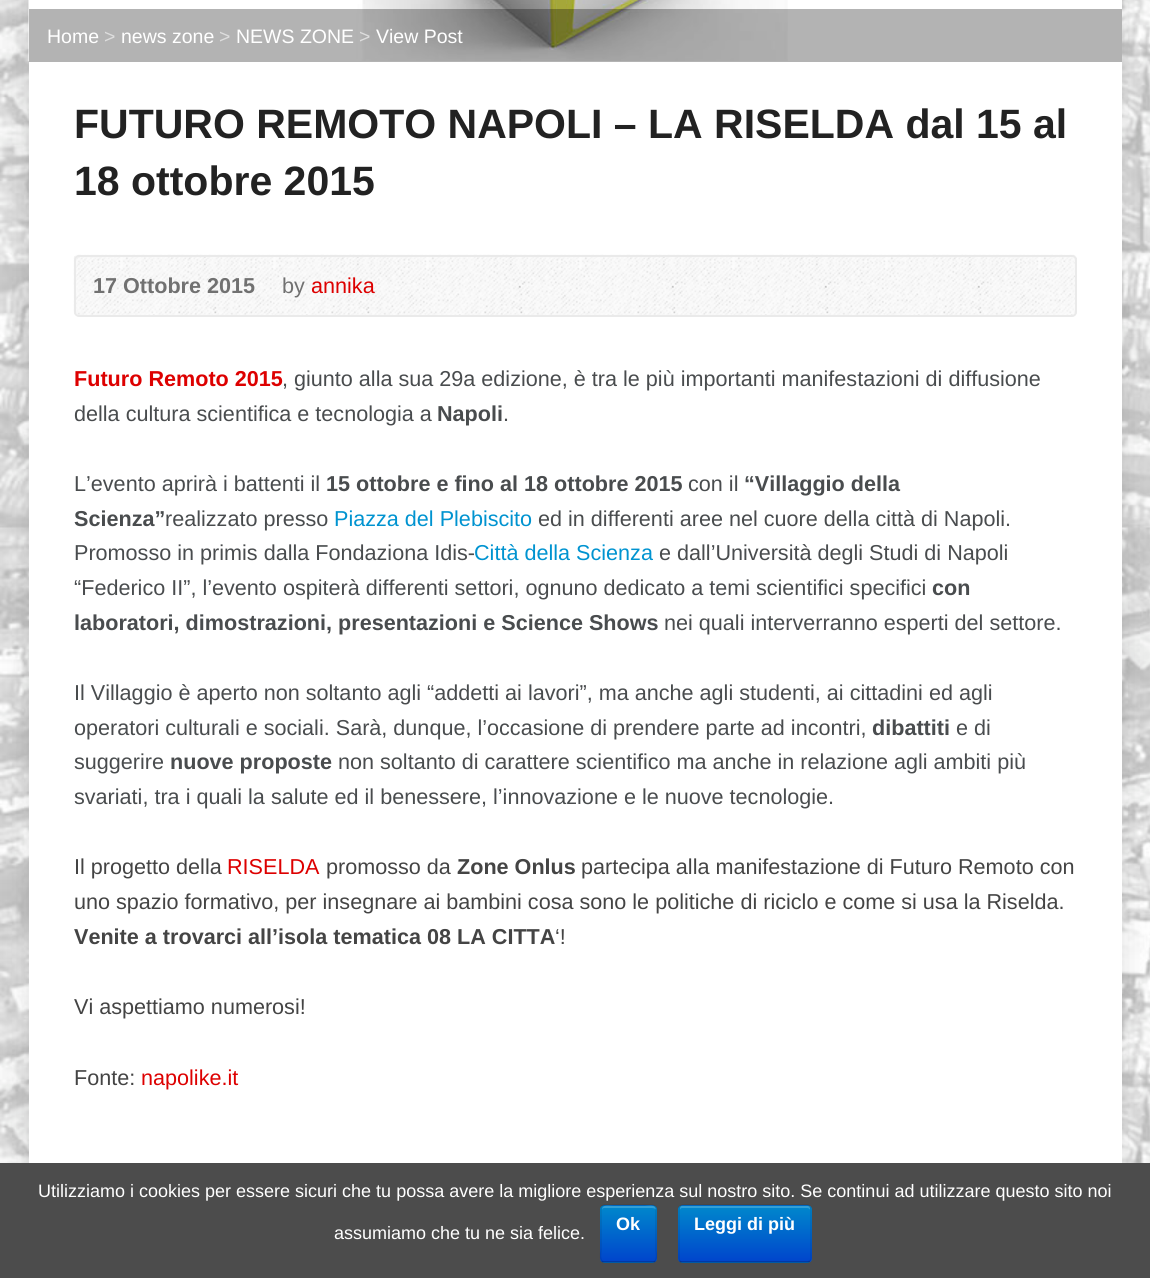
#include <cairo.h>
#include <math.h>
#include <stddef.h>

typedef struct { double x, y; const char *s; } line_t;

static void ink(cairo_t *ctx, unsigned color) {
    cairo_set_source_rgb(ctx, (color >> 16) / 255.0, (color >> 8 & 255) / 255.0, (color & 255) / 255.0);
}

static void round_path(cairo_t *ctx, double x, double y, double w, double h, double r) {
    cairo_new_sub_path(ctx);
    cairo_arc(ctx, x + w - r, y + h - r, r, 0, M_PI / 2);
    cairo_arc(ctx, x + r, y + h - r, r, M_PI / 2, M_PI);
    cairo_arc(ctx, x + r, y + r, r, M_PI, 1.5 * M_PI);
    cairo_arc(ctx, x + w - r, y + r, r, 1.5 * M_PI, 2 * M_PI);
    cairo_close_path(ctx);
}

static void blur_box(cairo_t *ctx, double x, double y, double w, double h, double r, double blur, double alpha) {
    cairo_push_group_with_content(ctx, CAIRO_CONTENT_ALPHA);
    cairo_set_operator(ctx, CAIRO_OPERATOR_SOURCE);
    for (int i = 15; i >= -15 && fmin(w, h) + blur * i / 3 > 0; i -= 2) {
        double e = blur * i / 6;
        cairo_set_source_rgba(ctx, 0, 0, 0, alpha * erfc((i - 1) / 8.5) / 2);
        round_path(ctx, x - e, y - e, w + 2 * e, h + 2 * e, fmax(0, fmin(r + e + blur * .6, fmin(w, h) / 2 + e)));
        cairo_fill(ctx);
    }
    cairo_pattern_t *soft = cairo_pop_group(ctx);
    cairo_mask(ctx, soft);
    cairo_pattern_destroy(soft);
}

static void paste(cairo_t *ctx, const char *path, double x, double y, double w, double h) {
    cairo_surface_t *image = cairo_image_surface_create_from_png(path);
    cairo_save(ctx);
    cairo_set_source_surface(ctx, image, x, y);
    cairo_rectangle(ctx, x, y, w, h);
    cairo_fill(ctx);
    cairo_restore(ctx);
    cairo_surface_destroy(image);
}

int main(void) {
    cairo_surface_t *surface = cairo_image_surface_create(CAIRO_FORMAT_RGB24, 1150, 1278);
    cairo_t *ctx = cairo_create(surface);
    cairo_font_options_t *options = cairo_font_options_create();
    cairo_font_options_set_hint_metrics(options, CAIRO_HINT_METRICS_OFF);
    cairo_font_options_set_hint_style(options, CAIRO_HINT_STYLE_NONE);
    cairo_set_font_options(ctx, options);
    cairo_set_miter_limit(ctx, 4);
    cairo_pattern_t *gradient;
    ink(ctx, 0xFFFFFF);
    cairo_paint(ctx);
    paste(ctx, "media/1.png", 0, 0, 1150, 1163);
    ink(ctx, 0x000000);
    blur_box(ctx, 29, -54, 1093, 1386, 9, 15, 0.12);
    ink(ctx, 0xFFFFFF);
    cairo_rectangle(ctx, 29, 0, 1093, 1163);
    cairo_fill(ctx);
    paste(ctx, "media/2.png", 28, 0, 760, 61);
    cairo_set_source_rgba(ctx, 0, 0, 0, 0.3);
    cairo_rectangle(ctx, 29, 9, 1093, 53);
    cairo_fill(ctx);
    cairo_select_font_face(ctx, "Liberation Sans", CAIRO_FONT_SLANT_NORMAL, CAIRO_FONT_WEIGHT_NORMAL);
    cairo_set_font_size(ctx, 19.5);
    ink(ctx, 0xFFFFFF);
    cairo_move_to(ctx, 47, 43);
    cairo_show_text(ctx, "Home");
    ink(ctx, 0xDDDDDD);
    cairo_move_to(ctx, 104, 43);
    cairo_show_text(ctx, ">");
    ink(ctx, 0xFFFFFF);
    cairo_move_to(ctx, 121, 43);
    cairo_show_text(ctx, "news zone");
    ink(ctx, 0xDDDDDD);
    cairo_move_to(ctx, 219, 43);
    cairo_show_text(ctx, ">");
    ink(ctx, 0xFFFFFF);
    cairo_move_to(ctx, 236, 43);
    cairo_show_text(ctx, "NEWS ZONE");
    ink(ctx, 0xDDDDDD);
    cairo_move_to(ctx, 359, 43);
    cairo_show_text(ctx, ">");
    ink(ctx, 0xFFFFFF);
    cairo_move_to(ctx, 376, 43);
    cairo_show_text(ctx, "View Post");
    cairo_select_font_face(ctx, "Liberation Sans", CAIRO_FONT_SLANT_NORMAL, CAIRO_FONT_WEIGHT_BOLD);
    cairo_set_font_size(ctx, 41);
    ink(ctx, 0x222222);
    cairo_move_to(ctx, 74, 138);
    cairo_show_text(ctx, "FUTURO REMOTO NAPOLI – LA RISELDA dal 15 al");
    cairo_move_to(ctx, 74, 195);
    cairo_show_text(ctx, "18 ottobre 2015");
    paste(ctx, "media/3.png", 73, 254, 1004, 62);
    round_path(ctx, 75, 256, 1001, 60, 4);
    ink(ctx, 0xEAEAEA);
    cairo_stroke(ctx);
    cairo_set_font_size(ctx, 21.6);
    ink(ctx, 0x717171);
    cairo_move_to(ctx, 93, 293);
    cairo_show_text(ctx, "17 Ottobre 2015");
    cairo_select_font_face(ctx, "Liberation Sans", CAIRO_FONT_SLANT_NORMAL, CAIRO_FONT_WEIGHT_NORMAL);
    cairo_move_to(ctx, 282, 293);
    cairo_show_text(ctx, "by");
    ink(ctx, 0xDD0000);
    cairo_move_to(ctx, 311, 293);
    cairo_show_text(ctx, "annika");
    cairo_select_font_face(ctx, "Liberation Sans", CAIRO_FONT_SLANT_NORMAL, CAIRO_FONT_WEIGHT_BOLD);
    cairo_move_to(ctx, 74, 386);
    cairo_show_text(ctx, "Futuro Remoto 2015");
    cairo_select_font_face(ctx, "Liberation Sans", CAIRO_FONT_SLANT_NORMAL, CAIRO_FONT_WEIGHT_NORMAL);
    ink(ctx, 0x494C4E);
    cairo_move_to(ctx, 282, 386);
    cairo_show_text(ctx, ", giunto alla sua 29a edizione, è tra le più importanti manifestazioni di diffusione");
    cairo_move_to(ctx, 74, 421);
    cairo_show_text(ctx, "della cultura scientifica e tecnologia a");
    cairo_select_font_face(ctx, "Liberation Sans", CAIRO_FONT_SLANT_NORMAL, CAIRO_FONT_WEIGHT_BOLD);
    cairo_move_to(ctx, 437, 421);
    cairo_show_text(ctx, "Napoli");
    cairo_select_font_face(ctx, "Liberation Sans", CAIRO_FONT_SLANT_NORMAL, CAIRO_FONT_WEIGHT_NORMAL);
    cairo_move_to(ctx, 503, 421);
    cairo_show_text(ctx, ".");
    cairo_move_to(ctx, 74, 491);
    cairo_show_text(ctx, "L’evento aprirà i battenti il");
    cairo_select_font_face(ctx, "Liberation Sans", CAIRO_FONT_SLANT_NORMAL, CAIRO_FONT_WEIGHT_BOLD);
    cairo_move_to(ctx, 326, 491);
    cairo_show_text(ctx, "15 ottobre e fino al 18 ottobre 2015");
    cairo_select_font_face(ctx, "Liberation Sans", CAIRO_FONT_SLANT_NORMAL, CAIRO_FONT_WEIGHT_NORMAL);
    cairo_move_to(ctx, 688, 491);
    cairo_show_text(ctx, "con il");
    cairo_select_font_face(ctx, "Liberation Sans", CAIRO_FONT_SLANT_NORMAL, CAIRO_FONT_WEIGHT_BOLD);
    cairo_move_to(ctx, 744, 491);
    cairo_show_text(ctx, "“Villaggio della");
    cairo_move_to(ctx, 74, 526);
    cairo_show_text(ctx, "Scienza”");
    cairo_select_font_face(ctx, "Liberation Sans", CAIRO_FONT_SLANT_NORMAL, CAIRO_FONT_WEIGHT_NORMAL);
    cairo_move_to(ctx, 165, 526);
    cairo_show_text(ctx, "realizzato presso");
    ink(ctx, 0x0093D0);
    cairo_move_to(ctx, 334, 526);
    cairo_show_text(ctx, "Piazza del Plebiscito");
    ink(ctx, 0x494C4E);
    cairo_move_to(ctx, 538, 526);
    cairo_show_text(ctx, "ed in differenti aree nel cuore della città di Napoli.");
    cairo_move_to(ctx, 74, 560);
    cairo_show_text(ctx, "Promosso in primis dalla Fondaziona Idis-");
    ink(ctx, 0x0093D0);
    cairo_move_to(ctx, 474, 560);
    cairo_show_text(ctx, "Città della Scienza");
    ink(ctx, 0x494C4E);
    cairo_move_to(ctx, 659, 560);
    cairo_show_text(ctx, "e dall’Università degli Studi di Napoli");
    cairo_move_to(ctx, 74, 595);
    cairo_show_text(ctx, "“Federico II”, l’evento ospiterà differenti settori, ognuno dedicato a temi scientifici specifici");
    cairo_select_font_face(ctx, "Liberation Sans", CAIRO_FONT_SLANT_NORMAL, CAIRO_FONT_WEIGHT_BOLD);
    cairo_move_to(ctx, 932, 595);
    cairo_show_text(ctx, "con");
    cairo_move_to(ctx, 74, 630);
    cairo_show_text(ctx, "laboratori, dimostrazioni, presentazioni e Science Shows");
    cairo_select_font_face(ctx, "Liberation Sans", CAIRO_FONT_SLANT_NORMAL, CAIRO_FONT_WEIGHT_NORMAL);
    {
        static const line_t items[] = {
            {664, 630, "nei quali interverranno esperti del settore."},
            {74, 700, "Il Villaggio è aperto non soltanto agli “addetti ai lavori”, ma anche agli studenti, ai cittadini ed agli"},
            {74, 735, "operatori culturali e sociali. Sarà, dunque, l’occasione di prendere parte ad incontri,"},
        };
        for (size_t i = 0; i < sizeof items / sizeof *items; i++) {
            cairo_move_to(ctx, items[i].x, items[i].y);
            cairo_show_text(ctx, items[i].s);
        }
    }
    cairo_select_font_face(ctx, "Liberation Sans", CAIRO_FONT_SLANT_NORMAL, CAIRO_FONT_WEIGHT_BOLD);
    cairo_move_to(ctx, 872, 735);
    cairo_show_text(ctx, "dibattiti");
    cairo_select_font_face(ctx, "Liberation Sans", CAIRO_FONT_SLANT_NORMAL, CAIRO_FONT_WEIGHT_NORMAL);
    cairo_move_to(ctx, 956, 735);
    cairo_show_text(ctx, "e di");
    cairo_move_to(ctx, 74, 769);
    cairo_show_text(ctx, "suggerire");
    cairo_select_font_face(ctx, "Liberation Sans", CAIRO_FONT_SLANT_NORMAL, CAIRO_FONT_WEIGHT_BOLD);
    cairo_move_to(ctx, 170, 769);
    cairo_show_text(ctx, "nuove proposte");
    cairo_select_font_face(ctx, "Liberation Sans", CAIRO_FONT_SLANT_NORMAL, CAIRO_FONT_WEIGHT_NORMAL);
    cairo_move_to(ctx, 338, 769);
    cairo_show_text(ctx, "non soltanto di carattere scientifico ma anche in relazione agli ambiti più");
    cairo_move_to(ctx, 74, 804);
    cairo_show_text(ctx, "svariati, tra i quali la salute ed il benessere, l’innovazione e le nuove tecnologie.");
    ink(ctx, 0x444444);
    cairo_move_to(ctx, 74, 874);
    cairo_show_text(ctx, "Il progetto della");
    ink(ctx, 0xDD0000);
    cairo_move_to(ctx, 227, 874);
    cairo_show_text(ctx, "RISELDA");
    ink(ctx, 0x444444);
    cairo_move_to(ctx, 326, 874);
    cairo_show_text(ctx, "promosso da");
    cairo_select_font_face(ctx, "Liberation Sans", CAIRO_FONT_SLANT_NORMAL, CAIRO_FONT_WEIGHT_BOLD);
    cairo_move_to(ctx, 457, 874);
    cairo_show_text(ctx, "Zone Onlus");
    cairo_select_font_face(ctx, "Liberation Sans", CAIRO_FONT_SLANT_NORMAL, CAIRO_FONT_WEIGHT_NORMAL);
    cairo_move_to(ctx, 581, 874);
    cairo_show_text(ctx, "partecipa alla manifestazione di Futuro Remoto con");
    cairo_move_to(ctx, 74, 909);
    cairo_show_text(ctx, "uno spazio formativo, per insegnare ai bambini cosa sono le politiche di riciclo e come si usa la Riselda.");
    cairo_select_font_face(ctx, "Liberation Sans", CAIRO_FONT_SLANT_NORMAL, CAIRO_FONT_WEIGHT_BOLD);
    cairo_move_to(ctx, 74, 944);
    cairo_show_text(ctx, "Venite a trovarci all’isola tematica 08 LA CITTA");
    cairo_select_font_face(ctx, "Liberation Sans", CAIRO_FONT_SLANT_NORMAL, CAIRO_FONT_WEIGHT_NORMAL);
    {
        static const line_t items[] = {
            {555, 944, "‘!"},
            {74, 1014, "Vi aspettiamo numerosi!"},
            {74, 1085, "Fonte:"},
        };
        for (size_t i = 0; i < sizeof items / sizeof *items; i++) {
            cairo_move_to(ctx, items[i].x, items[i].y);
            cairo_show_text(ctx, items[i].s);
        }
    }
    ink(ctx, 0xDD0000);
    cairo_move_to(ctx, 141, 1085);
    cairo_show_text(ctx, "napolike.it");
    ink(ctx, 0x4C4C4C);
    cairo_rectangle(ctx, 0, 1163, 1150, 115);
    cairo_fill(ctx);
    cairo_set_font_size(ctx, 18);
    ink(ctx, 0xFFFFFF);
    cairo_move_to(ctx, 38, 1197);
    cairo_show_text(ctx, "Utilizziamo i cookies per essere sicuri che tu possa avere la migliore esperienza sul nostro sito. Se continui ad utilizzare questo sito noi");
    cairo_move_to(ctx, 334, 1239);
    cairo_show_text(ctx, "assumiamo che tu ne sia felice.");
    ink(ctx, 0x006DCC);
    round_path(ctx, 600, 1205, 57, 58, 5);
    cairo_fill(ctx);
    cairo_save(ctx);
    round_path(ctx, 600, 1205, 57, 58, 5);
    cairo_clip(ctx);
    gradient = cairo_pattern_create_linear(629, 1206, 629, 1262);
    cairo_pattern_add_color_stop_rgba(gradient, 0, 0, 0.533, 0.8, 1);
    cairo_pattern_add_color_stop_rgba(gradient, 1, 0, 0.267, 0.8, 1);
    cairo_set_source(ctx, gradient);
    cairo_pattern_destroy(gradient);
    cairo_rectangle(ctx, 600, 1206, 57, 56);
    cairo_fill(ctx);
    cairo_restore(ctx);
    ink(ctx, 0x339FD6);
    cairo_new_path(ctx);
    cairo_move_to(ctx, 604, 1208);
    cairo_line_to(ctx, 652, 1208);
    cairo_curve_to(ctx, 654, 1208, 656, 1209, 656, 1210);
    cairo_curve_to(ctx, 656, 1204, 649, 1206, 645, 1206);
    cairo_line_to(ctx, 613, 1206);
    cairo_curve_to(ctx, 609, 1206, 602, 1204, 602, 1210);
    cairo_curve_to(ctx, 602, 1209, 603, 1208, 604, 1208);
    cairo_close_path(ctx);
    cairo_fill(ctx);
    cairo_new_path(ctx);
    cairo_move_to(ctx, 655, 1261);
    cairo_curve_to(ctx, 654.5, 1262, 653.5, 1262, 652.5, 1262);
    cairo_line_to(ctx, 604.5, 1262);
    cairo_curve_to(ctx, 603.5, 1262, 602.5, 1262, 602, 1261);
    cairo_set_source_rgba(ctx, 0, 0, 0, 0.25);
    cairo_set_line_width(ctx, 1.5);
    cairo_stroke(ctx);
    cairo_new_path(ctx);
    cairo_move_to(ctx, 602, 1261);
    cairo_curve_to(ctx, 599.5, 1258.5, 601, 1251.5, 601, 1250);
    cairo_line_to(ctx, 601, 1217);
    cairo_curve_to(ctx, 601, 1204.5, 599.5, 1205, 612.5, 1205);
    cairo_line_to(ctx, 644.5, 1205);
    cairo_curve_to(ctx, 657.5, 1205, 656, 1204.5, 656, 1217);
    cairo_line_to(ctx, 656, 1250);
    cairo_curve_to(ctx, 656, 1251.5, 657.5, 1258.5, 655, 1261);
    cairo_set_source_rgba(ctx, 0, 0, 0, 0.1);
    cairo_stroke(ctx);
    cairo_select_font_face(ctx, "Liberation Sans", CAIRO_FONT_SLANT_NORMAL, CAIRO_FONT_WEIGHT_BOLD);
    ink(ctx, 0xFFFFFF);
    cairo_move_to(ctx, 616, 1230);
    cairo_show_text(ctx, "Ok");
    ink(ctx, 0x006DCC);
    round_path(ctx, 678, 1205, 134, 58, 5);
    cairo_fill(ctx);
    cairo_save(ctx);
    round_path(ctx, 678, 1205, 134, 58, 5);
    cairo_clip(ctx);
    gradient = cairo_pattern_create_linear(745, 1206, 745, 1262);
    cairo_pattern_add_color_stop_rgba(gradient, 0, 0, 0.533, 0.8, 1);
    cairo_pattern_add_color_stop_rgba(gradient, 1, 0, 0.267, 0.8, 1);
    cairo_set_source(ctx, gradient);
    cairo_pattern_destroy(gradient);
    cairo_rectangle(ctx, 678, 1206, 134, 56);
    cairo_fill(ctx);
    cairo_restore(ctx);
    ink(ctx, 0x339FD6);
    cairo_new_path(ctx);
    cairo_move_to(ctx, 682, 1208);
    cairo_line_to(ctx, 807, 1208);
    cairo_curve_to(ctx, 809, 1208, 810, 1209, 810, 1210);
    cairo_curve_to(ctx, 810, 1208, 810, 1206, 808, 1206);
    cairo_line_to(ctx, 682, 1206);
    cairo_curve_to(ctx, 680, 1206, 680, 1208, 680, 1210);
    cairo_curve_to(ctx, 680, 1209, 681, 1208, 682, 1208);
    cairo_close_path(ctx);
    cairo_fill(ctx);
    cairo_new_path(ctx);
    cairo_move_to(ctx, 809.5, 1261);
    cairo_curve_to(ctx, 809, 1262, 808, 1262, 807, 1262);
    cairo_line_to(ctx, 682.5, 1262);
    cairo_curve_to(ctx, 681.5, 1262, 680.5, 1262, 680, 1261);
    cairo_set_source_rgba(ctx, 0, 0, 0, 0.25);
    cairo_stroke(ctx);
    cairo_new_path(ctx);
    cairo_move_to(ctx, 680, 1261);
    cairo_curve_to(ctx, 679, 1260.5, 679, 1259.5, 679, 1258.5);
    cairo_line_to(ctx, 679, 1209);
    cairo_curve_to(ctx, 679, 1208, 679, 1207, 680, 1206.5);
    cairo_curve_to(ctx, 680.5, 1205.5, 681.5, 1205, 682.5, 1205);
    cairo_line_to(ctx, 807, 1205);
    cairo_curve_to(ctx, 808, 1205, 809, 1205.5, 809.5, 1206.5);
    cairo_curve_to(ctx, 810.5, 1207, 811, 1208, 811, 1209);
    cairo_line_to(ctx, 811, 1258.5);
    cairo_curve_to(ctx, 811, 1259.5, 810.5, 1260.5, 809.5, 1261);
    cairo_set_source_rgba(ctx, 0, 0, 0, 0.1);
    cairo_stroke(ctx);
    ink(ctx, 0xFFFFFF);
    cairo_move_to(ctx, 694, 1230);
    cairo_show_text(ctx, "Leggi di più");
    cairo_surface_write_to_png(surface, "image.png");
    cairo_font_options_destroy(options);
    cairo_destroy(ctx);
    cairo_surface_destroy(surface);
    return 0;
}
